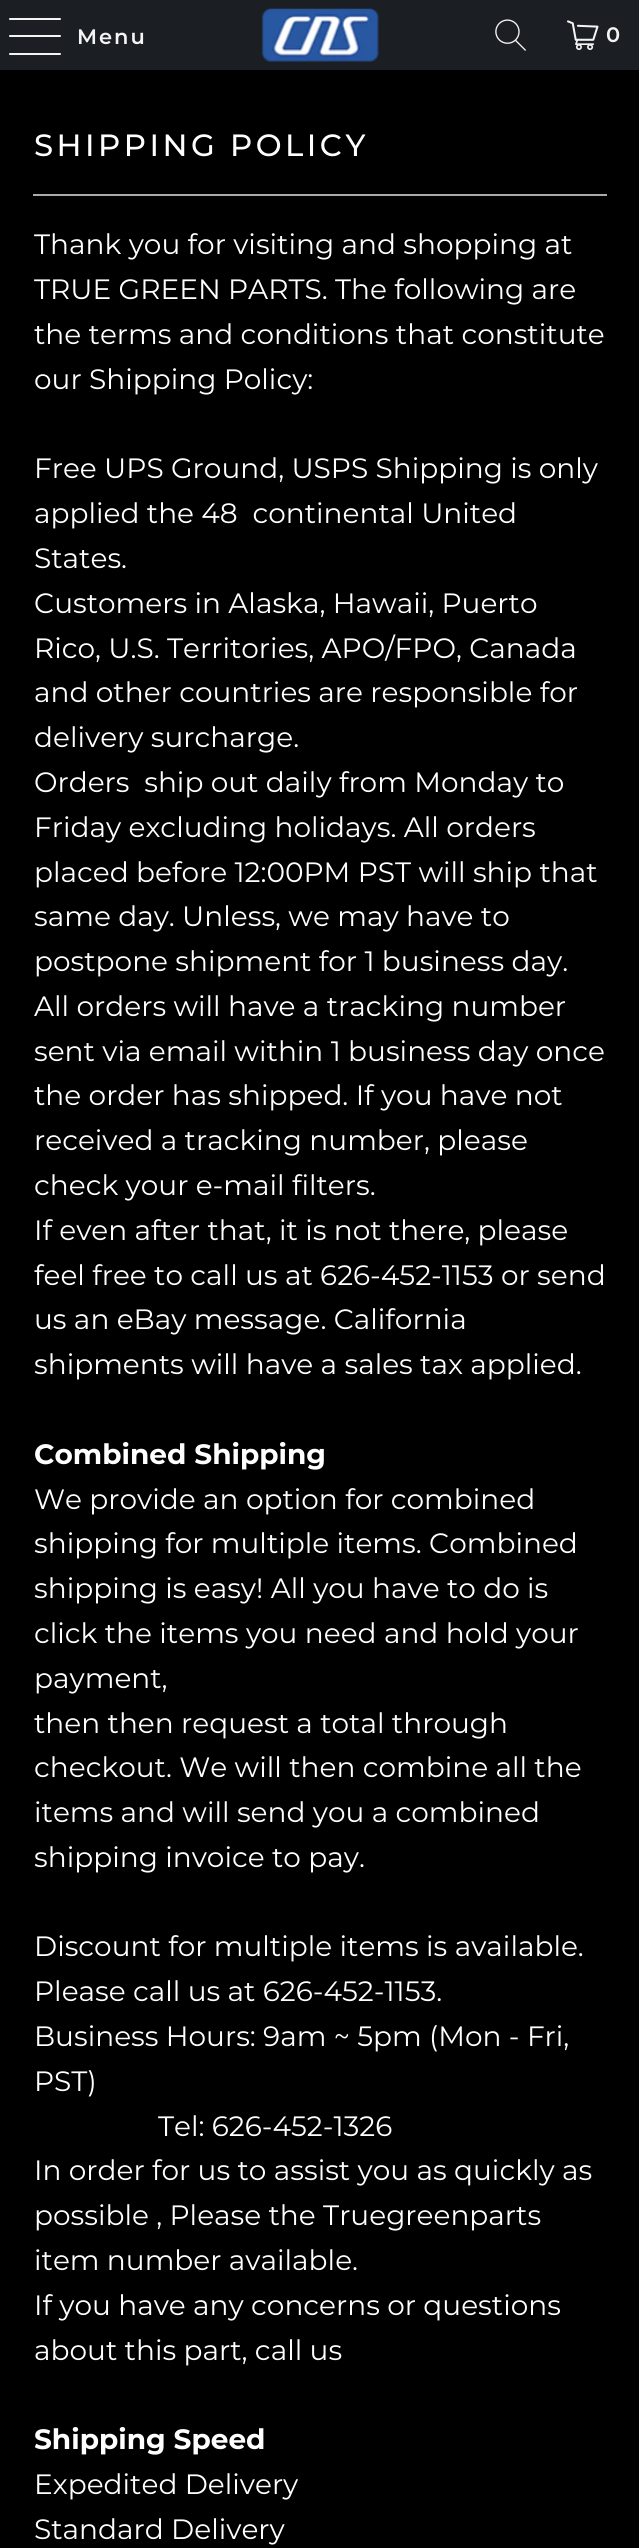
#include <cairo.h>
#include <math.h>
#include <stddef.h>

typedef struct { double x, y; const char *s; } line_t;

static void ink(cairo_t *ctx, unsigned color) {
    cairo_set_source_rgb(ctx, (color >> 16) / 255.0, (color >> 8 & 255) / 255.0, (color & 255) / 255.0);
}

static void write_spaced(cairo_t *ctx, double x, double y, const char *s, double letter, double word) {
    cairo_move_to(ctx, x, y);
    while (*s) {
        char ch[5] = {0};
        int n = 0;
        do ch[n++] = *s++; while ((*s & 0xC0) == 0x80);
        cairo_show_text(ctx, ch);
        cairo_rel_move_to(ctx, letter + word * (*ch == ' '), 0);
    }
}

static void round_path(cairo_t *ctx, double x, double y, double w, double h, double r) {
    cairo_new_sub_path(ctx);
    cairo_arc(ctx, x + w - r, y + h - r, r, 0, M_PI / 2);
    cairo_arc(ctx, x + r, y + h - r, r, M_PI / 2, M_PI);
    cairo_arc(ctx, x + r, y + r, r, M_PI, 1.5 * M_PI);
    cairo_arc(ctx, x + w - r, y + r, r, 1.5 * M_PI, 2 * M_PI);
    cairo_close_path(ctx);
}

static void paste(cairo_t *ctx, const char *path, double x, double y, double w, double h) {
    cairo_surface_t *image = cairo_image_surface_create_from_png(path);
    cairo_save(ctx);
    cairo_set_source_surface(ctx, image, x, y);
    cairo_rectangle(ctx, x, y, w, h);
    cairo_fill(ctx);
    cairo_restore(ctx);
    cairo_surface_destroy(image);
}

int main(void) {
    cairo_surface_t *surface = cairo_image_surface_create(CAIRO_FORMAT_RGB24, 639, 2548);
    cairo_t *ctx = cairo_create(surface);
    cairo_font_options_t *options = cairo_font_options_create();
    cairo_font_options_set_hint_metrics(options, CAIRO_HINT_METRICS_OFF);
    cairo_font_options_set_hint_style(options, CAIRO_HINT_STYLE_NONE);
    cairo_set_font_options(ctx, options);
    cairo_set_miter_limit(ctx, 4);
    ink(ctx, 0x000000);
    cairo_paint(ctx);
    ink(ctx, 0x1B1F23);
    cairo_rectangle(ctx, 0, 0, 639, 70);
    cairo_fill(ctx);
    ink(ctx, 0xF4F4F4);
    round_path(ctx, 9, 18, 52, 2, 1);
    cairo_fill(ctx);
    round_path(ctx, 9, 35, 52, 2, 1);
    cairo_fill(ctx);
    round_path(ctx, 9, 53, 52, 2, 1);
    cairo_fill(ctx);
    cairo_select_font_face(ctx, "Montserrat SemiBold", CAIRO_FONT_SLANT_NORMAL, CAIRO_FONT_WEIGHT_NORMAL);
    cairo_set_font_size(ctx, 21);
    write_spaced(ctx, 77, 44, "Menu", 2, 0);
    paste(ctx, "media/1.png", 261, 8, 118, 54);
    paste(ctx, "media/2.png", 495, 19, 31, 32);
    paste(ctx, "media/3.png", 567, 20, 32, 30);
    write_spaced(ctx, 606, 42, "0", 2, 0);
    cairo_select_font_face(ctx, "Montserrat Medium", CAIRO_FONT_SLANT_NORMAL, CAIRO_FONT_WEIGHT_NORMAL);
    cairo_set_font_size(ctx, 30.75);
    ink(ctx, 0xFFFFFF);
    write_spaced(ctx, 34, 156, "SHIPPING POLICY", 3.5, 0);
    ink(ctx, 0xAAAAAA);
    cairo_rectangle(ctx, 33, 194, 574, 2);
    cairo_fill(ctx);
    cairo_select_font_face(ctx, "Montserrat", CAIRO_FONT_SLANT_NORMAL, CAIRO_FONT_WEIGHT_NORMAL);
    cairo_set_font_size(ctx, 28);
    ink(ctx, 0xFFFFFF);
    {
        static const line_t items[] = {
            {34, 254, "Thank you for visiting and shopping at"},
            {34, 299, "TRUE GREEN PARTS. The following are"},
            {34, 344, "the terms and conditions that constitute"},
            {34, 389, "our Shipping Policy:"},
            {34, 478, "Free UPS Ground, USPS Shipping is only"},
            {34, 523, "applied the 48  continental United"},
            {34, 568, "States."},
            {34, 613, "Customers in Alaska, Hawaii, Puerto"},
            {34, 658, "Rico, U.S. Territories, APO/FPO, Canada"},
            {34, 702, "and other countries are responsible for"},
            {34, 747, "delivery surcharge."},
            {34, 792, "Orders  ship out daily from Monday to"},
            {34, 837, "Friday excluding holidays. All orders"},
            {34, 882, "placed before 12:00PM PST will ship that"},
            {34, 926, "same day. Unless, we may have to"},
            {34, 971, "postpone shipment for 1 business day."},
            {34, 1016, "All orders will have a tracking number"},
            {34, 1061, "sent via email within 1 business day once"},
            {34, 1105, "the order has shipped. If you have not"},
            {34, 1150, "received a tracking number, please"},
            {34, 1195, "check your e-mail filters."},
            {34, 1240, "If even after that, it is not there, please"},
            {34, 1285, "feel free to call us at 626-452-1153 or send"},
            {34, 1329, "us an eBay message. California"},
            {34, 1374, "shipments will have a sales tax applied."},
        };
        for (size_t i = 0; i < sizeof items / sizeof *items; i++) {
            cairo_move_to(ctx, items[i].x, items[i].y);
            cairo_show_text(ctx, items[i].s);
        }
    }
    cairo_select_font_face(ctx, "Montserrat", CAIRO_FONT_SLANT_NORMAL, CAIRO_FONT_WEIGHT_BOLD);
    cairo_move_to(ctx, 34, 1464);
    cairo_show_text(ctx, "Combined Shipping");
    cairo_select_font_face(ctx, "Montserrat", CAIRO_FONT_SLANT_NORMAL, CAIRO_FONT_WEIGHT_NORMAL);
    {
        static const line_t items[] = {
            {34, 1509, "We provide an option for combined"},
            {34, 1553, "shipping for multiple items. Combined"},
            {34, 1598, "shipping is easy! All you have to do is"},
            {34, 1643, "click the items you need and hold your"},
            {34, 1688, "payment,"},
            {34, 1733, "then then request a total through"},
            {34, 1777, "checkout. We will then combine all the"},
            {34, 1822, "items and will send you a combined"},
            {34, 1867, "shipping invoice to pay."},
            {34, 1956, "Discount for multiple items is available."},
            {34, 2001, "Please call us at 626-452-1153."},
            {34, 2046, "Business Hours: 9am ~ 5pm (Mon - Fri,"},
            {34, 2091, "PST)"},
            {158, 2136, "Tel: 626-452-1326"},
            {34, 2180, "In order for us to assist you as quickly as"},
            {34, 2225, "possible , Please the Truegreenparts"},
            {34, 2270, "item number available."},
            {34, 2315, "If you have any concerns or questions"},
            {34, 2360, "about this part, call us"},
        };
        for (size_t i = 0; i < sizeof items / sizeof *items; i++) {
            cairo_move_to(ctx, items[i].x, items[i].y);
            cairo_show_text(ctx, items[i].s);
        }
    }
    cairo_select_font_face(ctx, "Montserrat", CAIRO_FONT_SLANT_NORMAL, CAIRO_FONT_WEIGHT_BOLD);
    cairo_move_to(ctx, 34, 2449);
    cairo_show_text(ctx, "Shipping Speed");
    cairo_select_font_face(ctx, "Montserrat", CAIRO_FONT_SLANT_NORMAL, CAIRO_FONT_WEIGHT_NORMAL);
    cairo_move_to(ctx, 34, 2494);
    cairo_show_text(ctx, "Expedited Delivery");
    cairo_move_to(ctx, 34, 2539);
    cairo_show_text(ctx, "Standard Delivery");
    cairo_surface_write_to_png(surface, "image.png");
    cairo_font_options_destroy(options);
    cairo_destroy(ctx);
    cairo_surface_destroy(surface);
    return 0;
}
